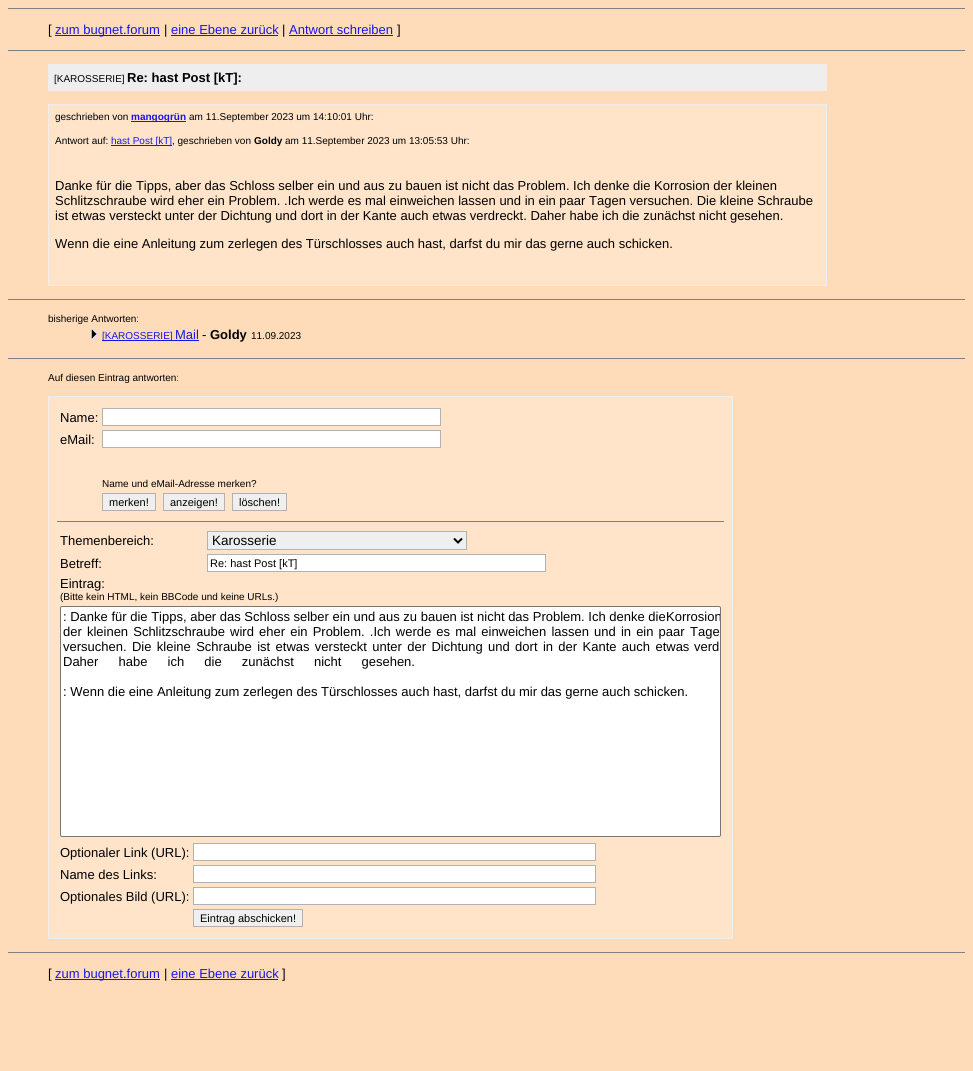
#include <cairo.h>
#include <math.h>
#include <stddef.h>

typedef struct { double x, y; const char *s; } line_t;

static void ink(cairo_t *ctx, unsigned color) {
    cairo_set_source_rgb(ctx, (color >> 16) / 255.0, (color >> 8 & 255) / 255.0, (color & 255) / 255.0);
}

static void write_spaced(cairo_t *ctx, double x, double y, const char *s, double letter, double word) {
    cairo_move_to(ctx, x, y);
    while (*s) {
        char ch[5] = {0};
        int n = 0;
        do ch[n++] = *s++; while ((*s & 0xC0) == 0x80);
        cairo_show_text(ctx, ch);
        cairo_rel_move_to(ctx, letter + word * (*ch == ' '), 0);
    }
}

static void round_path(cairo_t *ctx, double x, double y, double w, double h, double r) {
    cairo_new_sub_path(ctx);
    cairo_arc(ctx, x + w - r, y + h - r, r, 0, M_PI / 2);
    cairo_arc(ctx, x + r, y + h - r, r, M_PI / 2, M_PI);
    cairo_arc(ctx, x + r, y + r, r, M_PI, 1.5 * M_PI);
    cairo_arc(ctx, x + w - r, y + r, r, 1.5 * M_PI, 2 * M_PI);
    cairo_close_path(ctx);
}

static void paste(cairo_t *ctx, const char *path, double x, double y, double w, double h) {
    cairo_surface_t *image = cairo_image_surface_create_from_png(path);
    cairo_save(ctx);
    cairo_set_source_surface(ctx, image, x, y);
    cairo_rectangle(ctx, x, y, w, h);
    cairo_fill(ctx);
    cairo_restore(ctx);
    cairo_surface_destroy(image);
}

int main(void) {
    cairo_surface_t *surface = cairo_image_surface_create(CAIRO_FORMAT_RGB24, 973, 1071);
    cairo_t *ctx = cairo_create(surface);
    cairo_font_options_t *options = cairo_font_options_create();
    cairo_font_options_set_hint_metrics(options, CAIRO_HINT_METRICS_OFF);
    cairo_font_options_set_hint_style(options, CAIRO_HINT_STYLE_NONE);
    cairo_set_font_options(ctx, options);
    cairo_set_miter_limit(ctx, 4);
    ink(ctx, 0xFFDCB9);
    cairo_paint(ctx);
    ink(ctx, 0x808080);
    cairo_rectangle(ctx, 8, 8, 957, 1);
    cairo_fill(ctx);
    cairo_select_font_face(ctx, "Liberation Sans", CAIRO_FONT_SLANT_NORMAL, CAIRO_FONT_WEIGHT_NORMAL);
    cairo_set_font_size(ctx, 13);
    ink(ctx, 0x000000);
    cairo_move_to(ctx, 48, 34);
    cairo_show_text(ctx, "[");
    ink(ctx, 0x1715E8);
    cairo_rectangle(ctx, 55, 35, 105, 1);
    cairo_fill(ctx);
    cairo_move_to(ctx, 55, 34);
    cairo_show_text(ctx, "zum bugnet.forum");
    ink(ctx, 0x000000);
    cairo_move_to(ctx, 164, 34);
    cairo_show_text(ctx, "|");
    ink(ctx, 0x1715E8);
    cairo_move_to(ctx, 171, 34);
    cairo_show_text(ctx, "eine Ebene zurück");
    cairo_rectangle(ctx, 171, 35, 107, 1);
    cairo_fill(ctx);
    ink(ctx, 0x000000);
    cairo_move_to(ctx, 282, 34);
    cairo_show_text(ctx, "|");
    ink(ctx, 0x1715E8);
    cairo_move_to(ctx, 289, 34);
    cairo_show_text(ctx, "Antwort schreiben");
    cairo_rectangle(ctx, 289, 35, 104, 1);
    cairo_fill(ctx);
    ink(ctx, 0x000000);
    cairo_move_to(ctx, 397, 34);
    cairo_show_text(ctx, "]");
    ink(ctx, 0x808080);
    cairo_rectangle(ctx, 8, 50, 957, 1);
    cairo_fill(ctx);
    ink(ctx, 0xEEEEEE);
    cairo_rectangle(ctx, 48, 64, 779, 27);
    cairo_fill(ctx);
    cairo_set_font_size(ctx, 10);
    ink(ctx, 0x000000);
    cairo_move_to(ctx, 54, 82);
    cairo_show_text(ctx, "[KAROSSERIE]");
    cairo_select_font_face(ctx, "Liberation Sans", CAIRO_FONT_SLANT_NORMAL, CAIRO_FONT_WEIGHT_BOLD);
    cairo_set_font_size(ctx, 13);
    cairo_move_to(ctx, 127, 82);
    cairo_show_text(ctx, "Re: hast Post [kT]:");
    ink(ctx, 0xEEEEEE);
    cairo_rectangle(ctx, 48, 104, 779, 182);
    cairo_fill(ctx);
    ink(ctx, 0xFFE4CA);
    cairo_rectangle(ctx, 49, 105, 777, 180);
    cairo_fill(ctx);
    cairo_select_font_face(ctx, "Liberation Sans", CAIRO_FONT_SLANT_NORMAL, CAIRO_FONT_WEIGHT_NORMAL);
    cairo_set_font_size(ctx, 10);
    ink(ctx, 0x000000);
    cairo_move_to(ctx, 55, 120);
    cairo_show_text(ctx, "geschrieben von");
    ink(ctx, 0x1715E8);
    cairo_rectangle(ctx, 131, 121, 55, 1);
    cairo_fill(ctx);
    cairo_select_font_face(ctx, "Liberation Sans", CAIRO_FONT_SLANT_NORMAL, CAIRO_FONT_WEIGHT_BOLD);
    cairo_move_to(ctx, 131, 120);
    cairo_show_text(ctx, "mangogrün");
    cairo_select_font_face(ctx, "Liberation Sans", CAIRO_FONT_SLANT_NORMAL, CAIRO_FONT_WEIGHT_NORMAL);
    ink(ctx, 0x000000);
    cairo_move_to(ctx, 189, 120);
    cairo_show_text(ctx, "am 11.September 2023 um 14:10:01 Uhr:");
    cairo_move_to(ctx, 55, 144);
    cairo_show_text(ctx, "Antwort auf:");
    ink(ctx, 0x1715E8);
    cairo_rectangle(ctx, 111, 145, 61, 1);
    cairo_fill(ctx);
    cairo_move_to(ctx, 111, 144);
    cairo_show_text(ctx, "hast Post [kT]");
    ink(ctx, 0x000000);
    cairo_move_to(ctx, 172, 144);
    cairo_show_text(ctx, ", geschrieben von");
    cairo_select_font_face(ctx, "Liberation Sans", CAIRO_FONT_SLANT_NORMAL, CAIRO_FONT_WEIGHT_BOLD);
    cairo_move_to(ctx, 254, 144);
    cairo_show_text(ctx, "Goldy");
    cairo_select_font_face(ctx, "Liberation Sans", CAIRO_FONT_SLANT_NORMAL, CAIRO_FONT_WEIGHT_NORMAL);
    cairo_move_to(ctx, 285, 144);
    cairo_show_text(ctx, "am 11.September 2023 um 13:05:53 Uhr:");
    cairo_set_font_size(ctx, 13);
    {
        static const line_t items[] = {
            {55, 190, "Danke für die Tipps, aber das Schloss selber ein und aus zu bauen ist nicht das Problem. Ich denke die Korrosion der kleinen"},
            {55, 205, "Schlitzschraube wird eher ein Problem. .Ich werde es mal einweichen lassen und in ein paar Tagen versuchen. Die kleine Schraube"},
            {55, 220, "ist etwas versteckt unter der Dichtung und dort in der Kante auch etwas verdreckt. Daher habe ich die zunächst nicht gesehen."},
            {55, 248, "Wenn die eine Anleitung zum zerlegen des Türschlosses auch hast, darfst du mir das gerne auch schicken."},
        };
        for (size_t i = 0; i < sizeof items / sizeof *items; i++) {
            cairo_move_to(ctx, items[i].x, items[i].y);
            cairo_show_text(ctx, items[i].s);
        }
    }
    ink(ctx, 0x808080);
    cairo_rectangle(ctx, 8, 299, 957, 1);
    cairo_fill(ctx);
    cairo_set_font_size(ctx, 10);
    ink(ctx, 0x000000);
    cairo_move_to(ctx, 48, 322);
    cairo_show_text(ctx, "bisherige Antworten:");
    paste(ctx, "media/1.png", 91, 329, 7, 10);
    ink(ctx, 0x1715E8);
    cairo_rectangle(ctx, 102, 340, 97, 1);
    cairo_fill(ctx);
    cairo_move_to(ctx, 102, 339);
    cairo_show_text(ctx, "[KAROSSERIE]");
    cairo_set_font_size(ctx, 13);
    cairo_move_to(ctx, 175, 339);
    cairo_show_text(ctx, "Mail");
    ink(ctx, 0x000000);
    cairo_move_to(ctx, 202, 339);
    cairo_show_text(ctx, "-");
    cairo_select_font_face(ctx, "Liberation Sans", CAIRO_FONT_SLANT_NORMAL, CAIRO_FONT_WEIGHT_BOLD);
    cairo_move_to(ctx, 210, 339);
    cairo_show_text(ctx, "Goldy");
    cairo_select_font_face(ctx, "Liberation Sans", CAIRO_FONT_SLANT_NORMAL, CAIRO_FONT_WEIGHT_NORMAL);
    cairo_set_font_size(ctx, 10);
    cairo_move_to(ctx, 251, 339);
    cairo_show_text(ctx, "11.09.2023");
    ink(ctx, 0x808080);
    cairo_rectangle(ctx, 8, 358, 957, 1);
    cairo_fill(ctx);
    ink(ctx, 0x000000);
    cairo_move_to(ctx, 48, 381);
    cairo_show_text(ctx, "Auf diesen Eintrag antworten:");
    ink(ctx, 0xEEEEEE);
    cairo_rectangle(ctx, 48, 396, 685, 543);
    cairo_fill(ctx);
    ink(ctx, 0xFFE4CA);
    cairo_rectangle(ctx, 49, 397, 683, 541);
    cairo_fill(ctx);
    cairo_set_font_size(ctx, 13);
    ink(ctx, 0x000000);
    cairo_move_to(ctx, 60, 422);
    cairo_show_text(ctx, "Name:");
    ink(ctx, 0xFFFFFF);
    cairo_rectangle(ctx, 102.5, 408.5, 338, 17);
    cairo_fill_preserve(ctx);
    ink(ctx, 0xB1B1B1);
    cairo_set_line_width(ctx, 1);
    cairo_stroke(ctx);
    ink(ctx, 0x000000);
    cairo_move_to(ctx, 60, 444);
    cairo_show_text(ctx, "eMail:");
    ink(ctx, 0xFFFFFF);
    cairo_rectangle(ctx, 102.5, 430.5, 338, 17);
    cairo_fill_preserve(ctx);
    ink(ctx, 0xB1B1B1);
    cairo_stroke(ctx);
    cairo_set_font_size(ctx, 10);
    ink(ctx, 0x000000);
    cairo_move_to(ctx, 102, 487);
    cairo_show_text(ctx, "Name und eMail-Adresse merken?");
    ink(ctx, 0xEFEFEF);
    cairo_rectangle(ctx, 102.5, 493.5, 53, 17);
    cairo_fill_preserve(ctx);
    ink(ctx, 0xB1B1B1);
    cairo_stroke(ctx);
    cairo_set_font_size(ctx, 11);
    ink(ctx, 0x000000);
    cairo_move_to(ctx, 109, 506);
    cairo_show_text(ctx, "merken!");
    ink(ctx, 0xEFEFEF);
    cairo_rectangle(ctx, 163.5, 493.5, 61, 17);
    cairo_fill_preserve(ctx);
    ink(ctx, 0xB1B1B1);
    cairo_stroke(ctx);
    ink(ctx, 0x000000);
    cairo_move_to(ctx, 170, 506);
    cairo_show_text(ctx, "anzeigen!");
    ink(ctx, 0xEFEFEF);
    cairo_rectangle(ctx, 232.5, 493.5, 54, 17);
    cairo_fill_preserve(ctx);
    ink(ctx, 0xB1B1B1);
    cairo_stroke(ctx);
    ink(ctx, 0x000000);
    cairo_move_to(ctx, 239, 506);
    cairo_show_text(ctx, "löschen!");
    ink(ctx, 0x808080);
    cairo_rectangle(ctx, 57, 521, 667, 1);
    cairo_fill(ctx);
    cairo_set_font_size(ctx, 13);
    ink(ctx, 0x000000);
    cairo_move_to(ctx, 60, 545);
    cairo_show_text(ctx, "Themenbereich:");
    ink(ctx, 0xEFEFEF);
    cairo_rectangle(ctx, 207.5, 531.5, 259, 18);
    cairo_fill_preserve(ctx);
    ink(ctx, 0xB1B1B1);
    cairo_stroke(ctx);
    cairo_new_path(ctx);
    cairo_move_to(ctx, 454, 538.5);
    cairo_line_to(ctx, 458, 542.5);
    cairo_line_to(ctx, 462, 538.5);
    ink(ctx, 0x000000);
    cairo_set_line_width(ctx, 2);
    cairo_stroke(ctx);
    cairo_set_font_size(ctx, 13.5);
    cairo_move_to(ctx, 212, 545);
    cairo_show_text(ctx, "Karosserie");
    cairo_set_font_size(ctx, 13);
    cairo_move_to(ctx, 60, 568);
    cairo_show_text(ctx, "Betreff:");
    ink(ctx, 0xFFFFFF);
    cairo_rectangle(ctx, 207.5, 554.5, 338, 17);
    cairo_fill_preserve(ctx);
    ink(ctx, 0xB1B1B1);
    cairo_set_line_width(ctx, 1);
    cairo_stroke(ctx);
    cairo_set_font_size(ctx, 11);
    ink(ctx, 0x000000);
    cairo_move_to(ctx, 210, 567);
    cairo_show_text(ctx, "Re: hast Post [kT]");
    cairo_set_font_size(ctx, 13);
    cairo_move_to(ctx, 60, 588);
    cairo_show_text(ctx, "Eintrag:");
    cairo_set_font_size(ctx, 10);
    cairo_move_to(ctx, 60, 600);
    cairo_show_text(ctx, "(Bitte kein HTML, kein BBCode und keine URLs.)");
    ink(ctx, 0xFFFFFF);
    round_path(ctx, 60.5, 606.5, 660, 230, 1.5);
    cairo_fill_preserve(ctx);
    ink(ctx, 0x767676);
    cairo_stroke(ctx);
    cairo_set_font_size(ctx, 13);
    ink(ctx, 0x000000);
    cairo_move_to(ctx, 63, 621);
    cairo_show_text(ctx, ": Danke für die Tipps, aber das Schloss selber ein und aus zu bauen ist nicht das Problem. Ich denke die");
    cairo_save(ctx);
    cairo_rectangle(ctx, 61, 607, 659, 229);
    cairo_clip(ctx);
    cairo_move_to(ctx, 666, 621);
    cairo_show_text(ctx, "Korrosion");
    cairo_restore(ctx);
    write_spaced(ctx, 63, 636, "der kleinen Schlitzschraube wird eher ein Problem. .Ich werde es mal einweichen lassen und in ein paar", 0, 1.5);
    cairo_move_to(ctx, 690, 636);
    cairo_show_text(ctx, "Tage");
    write_spaced(ctx, 63, 651, "versuchen. Die kleine Schraube ist etwas versteckt unter der Dichtung und dort in der Kante auch etwas", 0, 1.75);
    cairo_move_to(ctx, 694, 651);
    cairo_show_text(ctx, "verd");
    write_spaced(ctx, 63, 666, "Daher habe ich die zunächst nicht gesehen.", 0, 16.5);
    cairo_move_to(ctx, 63, 696);
    cairo_show_text(ctx, ": Wenn die eine Anleitung zum zerlegen des Türschlosses auch hast, darfst du mir das gerne auch schicken.");
    cairo_move_to(ctx, 60, 857);
    cairo_show_text(ctx, "Optionaler Link (URL):");
    ink(ctx, 0xFFFFFF);
    cairo_rectangle(ctx, 193.5, 843.5, 402, 17);
    cairo_fill_preserve(ctx);
    ink(ctx, 0xB1B1B1);
    cairo_stroke(ctx);
    ink(ctx, 0x000000);
    cairo_move_to(ctx, 60, 879);
    cairo_show_text(ctx, "Name des Links:");
    ink(ctx, 0xFFFFFF);
    cairo_rectangle(ctx, 193.5, 865.5, 402, 17);
    cairo_fill_preserve(ctx);
    ink(ctx, 0xB1B1B1);
    cairo_stroke(ctx);
    ink(ctx, 0x000000);
    cairo_move_to(ctx, 60, 901);
    cairo_show_text(ctx, "Optionales Bild (URL):");
    ink(ctx, 0xFFFFFF);
    cairo_rectangle(ctx, 193.5, 887.5, 402, 17);
    cairo_fill_preserve(ctx);
    ink(ctx, 0xB1B1B1);
    cairo_stroke(ctx);
    ink(ctx, 0xEFEFEF);
    cairo_rectangle(ctx, 193.5, 909.5, 109, 17);
    cairo_fill_preserve(ctx);
    ink(ctx, 0xB1B1B1);
    cairo_stroke(ctx);
    cairo_set_font_size(ctx, 11);
    ink(ctx, 0x000000);
    cairo_move_to(ctx, 200, 922);
    cairo_show_text(ctx, "Eintrag abschicken!");
    ink(ctx, 0x808080);
    cairo_rectangle(ctx, 8, 952, 957, 1);
    cairo_fill(ctx);
    cairo_set_font_size(ctx, 13);
    ink(ctx, 0x000000);
    cairo_move_to(ctx, 48, 978);
    cairo_show_text(ctx, "[");
    ink(ctx, 0x1715E8);
    cairo_rectangle(ctx, 55, 979, 105, 1);
    cairo_fill(ctx);
    cairo_move_to(ctx, 55, 978);
    cairo_show_text(ctx, "zum bugnet.forum");
    ink(ctx, 0x000000);
    cairo_move_to(ctx, 164, 978);
    cairo_show_text(ctx, "|");
    ink(ctx, 0x1715E8);
    cairo_move_to(ctx, 171, 978);
    cairo_show_text(ctx, "eine Ebene zurück");
    cairo_rectangle(ctx, 171, 979, 107, 1);
    cairo_fill(ctx);
    ink(ctx, 0x000000);
    cairo_move_to(ctx, 282, 978);
    cairo_show_text(ctx, "]");
    cairo_surface_write_to_png(surface, "image.png");
    cairo_font_options_destroy(options);
    cairo_destroy(ctx);
    cairo_surface_destroy(surface);
    return 0;
}
